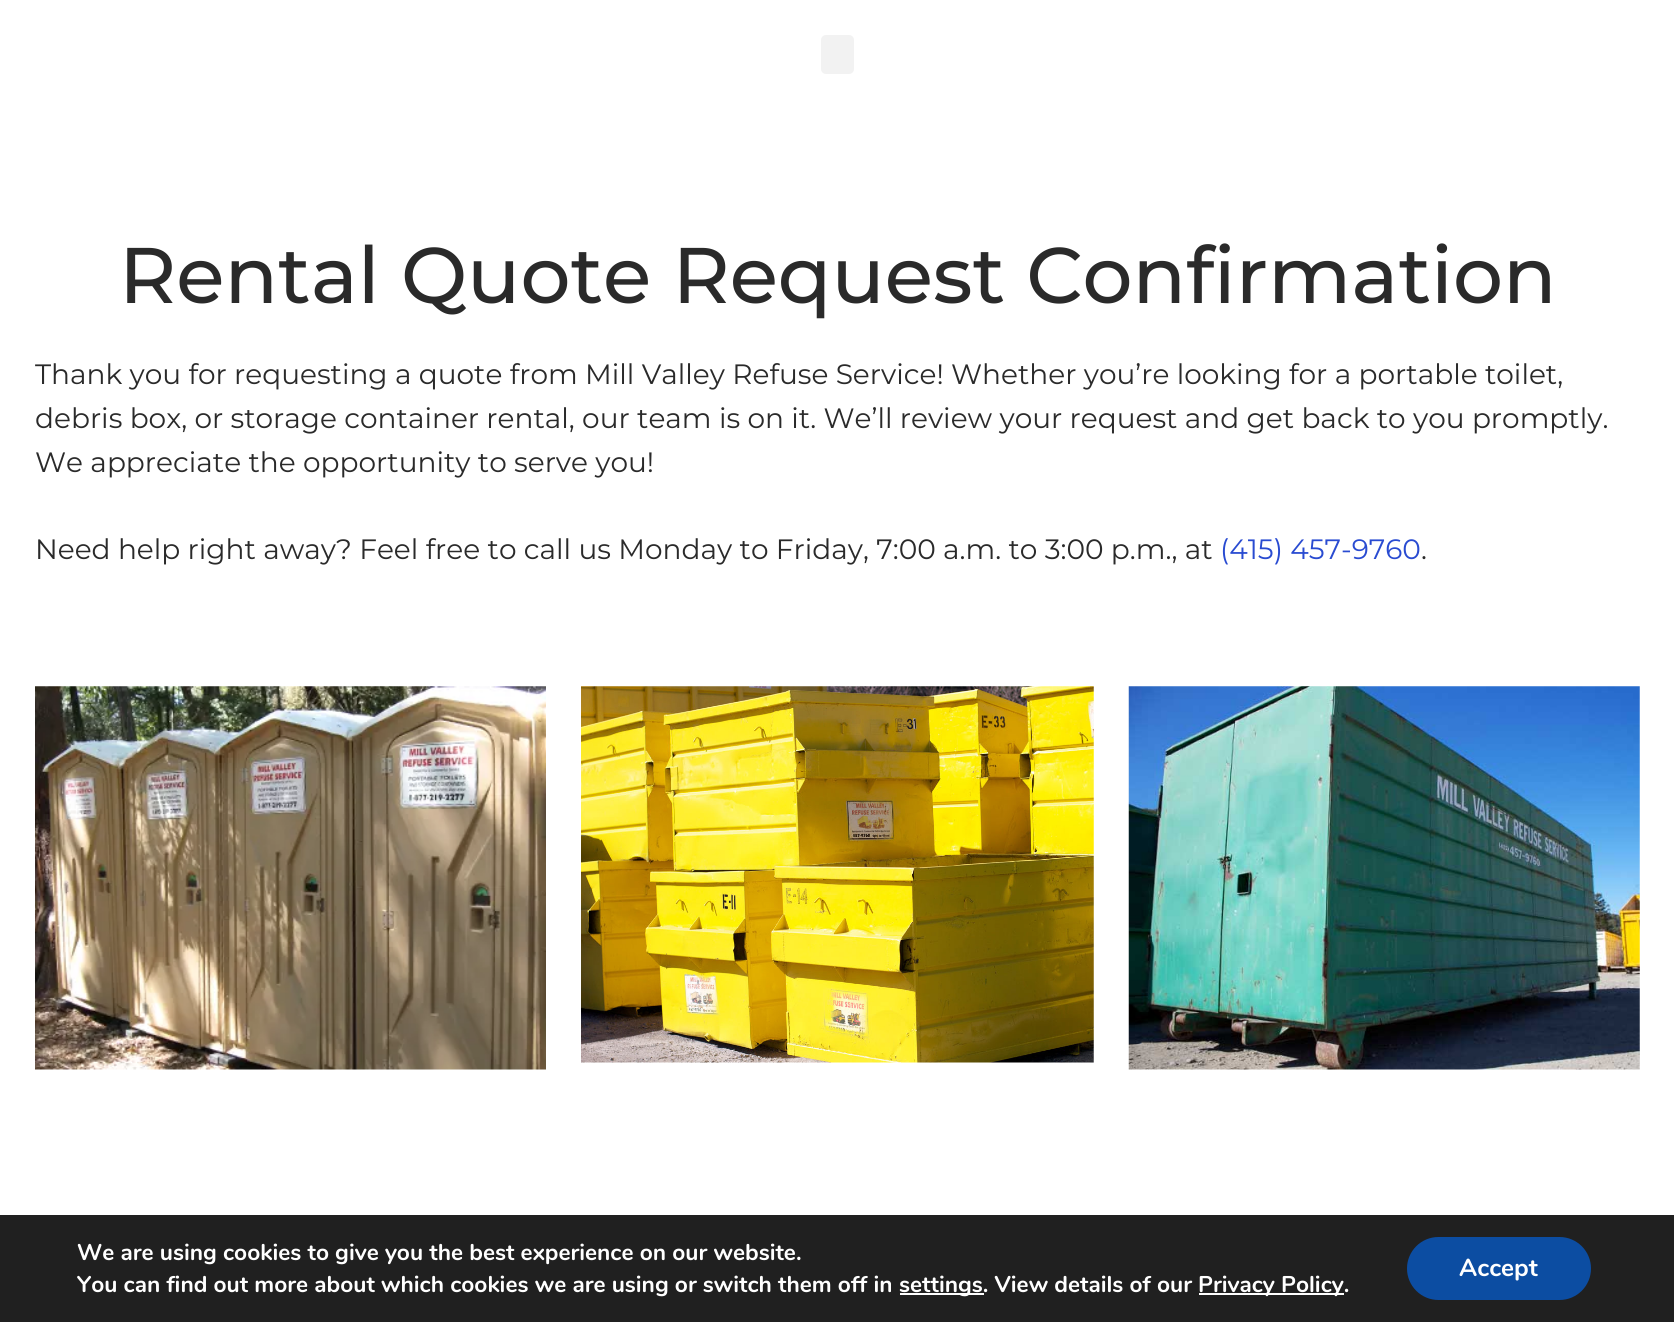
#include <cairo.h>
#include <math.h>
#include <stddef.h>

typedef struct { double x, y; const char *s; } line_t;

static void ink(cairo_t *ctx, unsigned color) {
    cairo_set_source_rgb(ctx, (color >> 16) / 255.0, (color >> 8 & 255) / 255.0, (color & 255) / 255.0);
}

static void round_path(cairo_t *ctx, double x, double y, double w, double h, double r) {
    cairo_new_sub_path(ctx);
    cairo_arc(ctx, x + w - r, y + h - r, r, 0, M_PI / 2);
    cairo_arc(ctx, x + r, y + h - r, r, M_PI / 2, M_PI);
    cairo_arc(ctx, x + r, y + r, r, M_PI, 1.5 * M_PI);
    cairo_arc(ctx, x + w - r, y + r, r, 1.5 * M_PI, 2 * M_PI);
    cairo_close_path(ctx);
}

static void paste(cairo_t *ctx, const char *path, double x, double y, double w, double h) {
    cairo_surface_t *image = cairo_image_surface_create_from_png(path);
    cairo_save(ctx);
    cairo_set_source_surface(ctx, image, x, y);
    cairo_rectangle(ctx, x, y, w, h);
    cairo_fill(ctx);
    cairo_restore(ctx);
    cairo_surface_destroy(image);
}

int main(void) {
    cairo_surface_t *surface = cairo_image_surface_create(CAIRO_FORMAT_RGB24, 1674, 1322);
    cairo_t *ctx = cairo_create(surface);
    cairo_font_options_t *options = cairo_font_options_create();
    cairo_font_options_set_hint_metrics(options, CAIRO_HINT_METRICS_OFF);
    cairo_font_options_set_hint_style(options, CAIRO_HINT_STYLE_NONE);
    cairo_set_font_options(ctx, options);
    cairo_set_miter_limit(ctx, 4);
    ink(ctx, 0xFFFFFF);
    cairo_paint(ctx);
    ink(ctx, 0xF2F2F2);
    round_path(ctx, 821, 35, 33, 39, 5);
    cairo_fill(ctx);
    cairo_select_font_face(ctx, "Montserrat Medium", CAIRO_FONT_SLANT_NORMAL, CAIRO_FONT_WEIGHT_NORMAL);
    cairo_set_font_size(ctx, 78.75);
    ink(ctx, 0x2A2A2A);
    cairo_move_to(ctx, 119, 303);
    cairo_show_text(ctx, "Rental Quote Request Confirmation");
    cairo_select_font_face(ctx, "Montserrat", CAIRO_FONT_SLANT_NORMAL, CAIRO_FONT_WEIGHT_NORMAL);
    cairo_set_font_size(ctx, 28);
    {
        static const line_t items[] = {
            {35, 384, "Thank you for requesting a quote from Mill Valley Refuse Service! Whether you’re looking for a portable toilet,"},
            {35, 428, "debris box, or storage container rental, our team is on it. We’ll review your request and get back to you promptly."},
            {35, 472, "We appreciate the opportunity to serve you!"},
            {35, 559, "Need help right away? Feel free to call us Monday to Friday, 7:00 a.m. to 3:00 p.m., at"},
        };
        for (size_t i = 0; i < sizeof items / sizeof *items; i++) {
            cairo_move_to(ctx, items[i].x, items[i].y);
            cairo_show_text(ctx, items[i].s);
        }
    }
    ink(ctx, 0x294BD1);
    cairo_move_to(ctx, 1220, 559);
    cairo_show_text(ctx, "(415) 457-9760");
    ink(ctx, 0x2A2A2A);
    cairo_move_to(ctx, 1421, 559);
    cairo_show_text(ctx, ".");
    paste(ctx, "media/1.png", 35, 686, 511, 384);
    paste(ctx, "media/2.png", 581, 686, 513, 377);
    paste(ctx, "media/3.png", 1128, 686, 512, 384);
    ink(ctx, 0x202020);
    cairo_rectangle(ctx, 0, 1215, 1674, 107);
    cairo_fill(ctx);
    cairo_select_font_face(ctx, "Nunito", CAIRO_FONT_SLANT_NORMAL, CAIRO_FONT_WEIGHT_BOLD);
    cairo_set_font_size(ctx, 22.75);
    ink(ctx, 0xFFFFFF);
    cairo_move_to(ctx, 77, 1260);
    cairo_show_text(ctx, "We are using cookies to give you the best experience on our website.");
    cairo_move_to(ctx, 77, 1292);
    cairo_show_text(ctx, "You can find out more about which cookies we are using or switch them off in");
    cairo_rectangle(ctx, 900, 1293, 84, 2);
    cairo_fill(ctx);
    cairo_move_to(ctx, 899, 1292);
    cairo_show_text(ctx, "settings. View details of our");
    cairo_rectangle(ctx, 1199, 1293, 145, 2);
    cairo_fill(ctx);
    cairo_move_to(ctx, 1198, 1292);
    cairo_show_text(ctx, "Privacy Policy.");
    ink(ctx, 0x0C4DA2);
    round_path(ctx, 1407, 1237, 184, 63, 31.5);
    cairo_fill(ctx);
    cairo_set_font_size(ctx, 24.5);
    ink(ctx, 0xFFFFFF);
    cairo_move_to(ctx, 1459, 1276);
    cairo_show_text(ctx, "Accept");
    cairo_surface_write_to_png(surface, "image.png");
    cairo_font_options_destroy(options);
    cairo_destroy(ctx);
    cairo_surface_destroy(surface);
    return 0;
}
